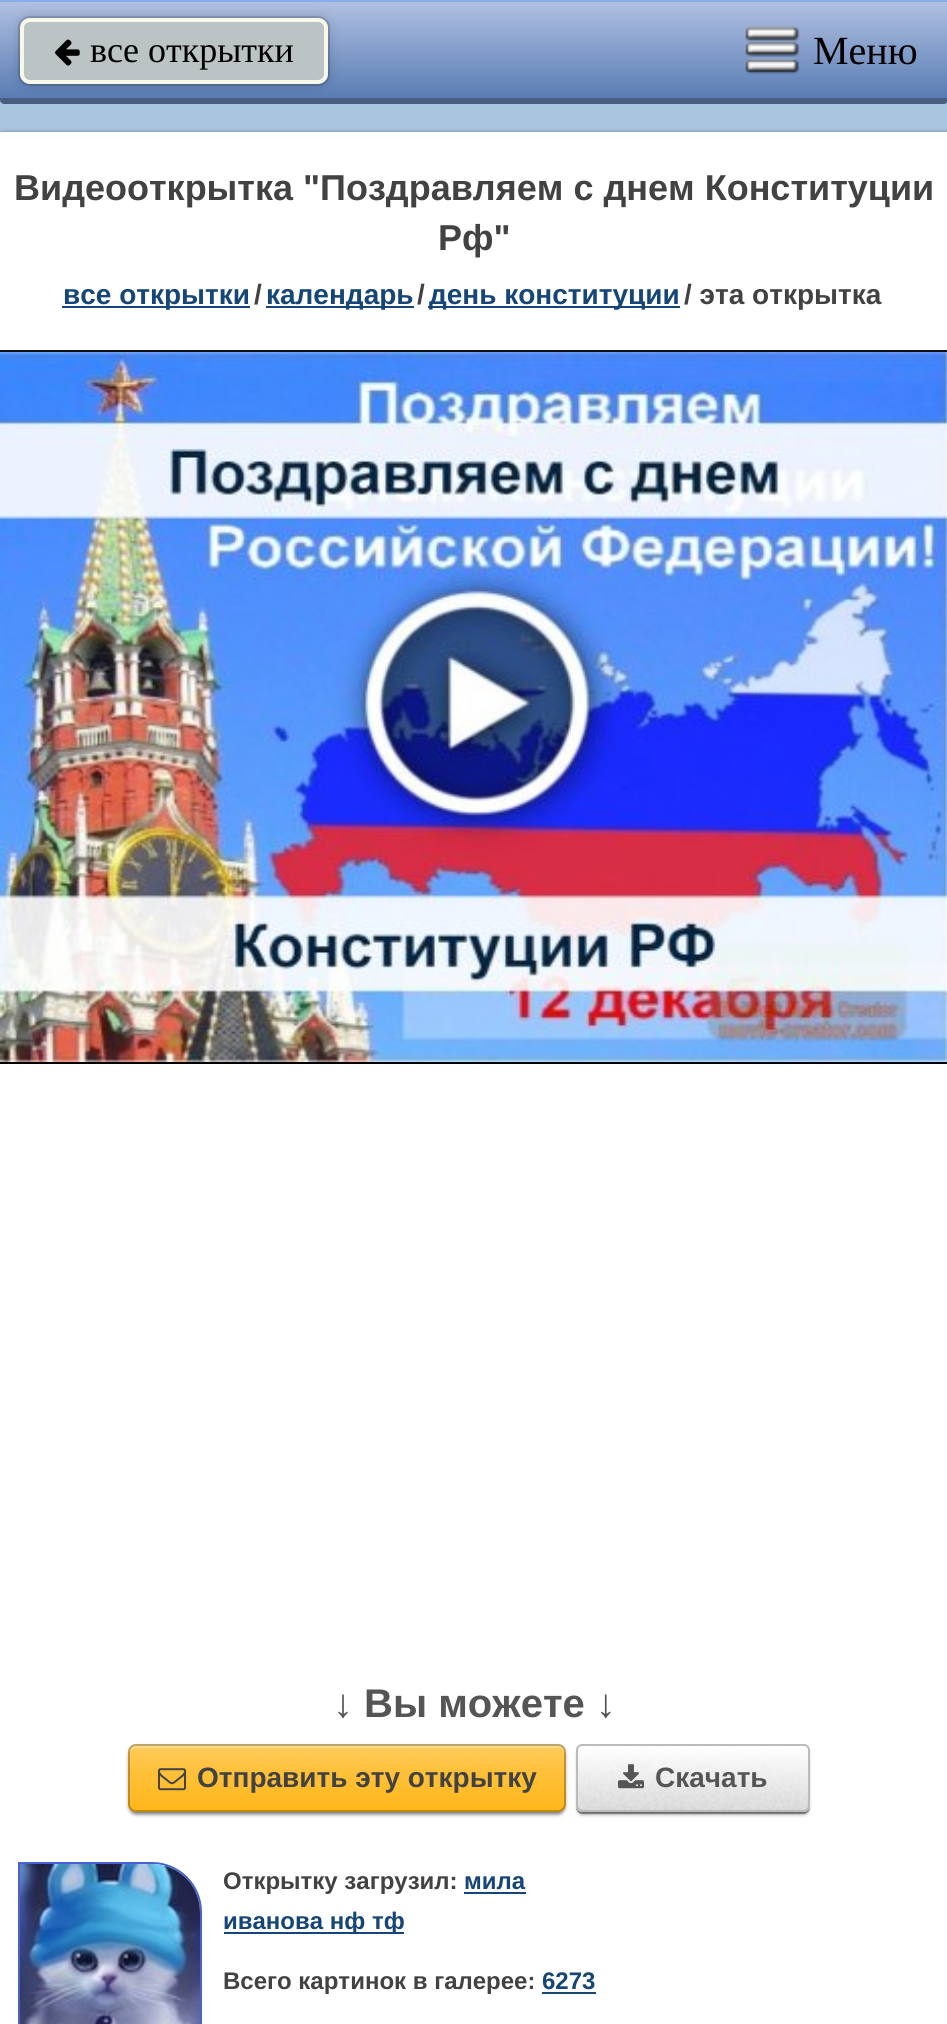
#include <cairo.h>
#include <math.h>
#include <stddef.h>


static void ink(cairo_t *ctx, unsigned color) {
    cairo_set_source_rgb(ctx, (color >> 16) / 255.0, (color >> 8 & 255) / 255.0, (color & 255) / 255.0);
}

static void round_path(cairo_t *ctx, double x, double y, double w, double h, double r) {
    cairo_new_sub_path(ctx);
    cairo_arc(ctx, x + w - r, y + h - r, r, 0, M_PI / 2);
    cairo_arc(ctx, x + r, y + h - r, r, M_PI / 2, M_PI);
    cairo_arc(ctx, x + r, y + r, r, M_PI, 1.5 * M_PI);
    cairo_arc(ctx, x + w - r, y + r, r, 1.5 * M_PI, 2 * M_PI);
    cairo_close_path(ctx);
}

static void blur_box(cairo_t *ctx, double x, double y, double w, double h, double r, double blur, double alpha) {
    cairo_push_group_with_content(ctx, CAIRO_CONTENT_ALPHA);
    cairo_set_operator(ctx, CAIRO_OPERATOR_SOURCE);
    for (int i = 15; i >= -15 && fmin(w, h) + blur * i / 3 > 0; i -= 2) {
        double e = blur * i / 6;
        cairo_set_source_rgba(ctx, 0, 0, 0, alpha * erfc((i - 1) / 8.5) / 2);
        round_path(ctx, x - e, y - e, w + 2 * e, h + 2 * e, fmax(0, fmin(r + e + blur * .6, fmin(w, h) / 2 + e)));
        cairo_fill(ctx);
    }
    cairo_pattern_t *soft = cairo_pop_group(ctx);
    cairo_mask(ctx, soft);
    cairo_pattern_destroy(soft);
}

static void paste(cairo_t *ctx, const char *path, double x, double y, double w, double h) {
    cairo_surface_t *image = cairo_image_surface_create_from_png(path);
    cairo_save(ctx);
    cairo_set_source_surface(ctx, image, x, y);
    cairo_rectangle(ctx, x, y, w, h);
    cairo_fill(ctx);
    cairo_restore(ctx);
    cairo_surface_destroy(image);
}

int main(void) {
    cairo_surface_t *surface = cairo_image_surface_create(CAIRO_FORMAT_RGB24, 947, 2024);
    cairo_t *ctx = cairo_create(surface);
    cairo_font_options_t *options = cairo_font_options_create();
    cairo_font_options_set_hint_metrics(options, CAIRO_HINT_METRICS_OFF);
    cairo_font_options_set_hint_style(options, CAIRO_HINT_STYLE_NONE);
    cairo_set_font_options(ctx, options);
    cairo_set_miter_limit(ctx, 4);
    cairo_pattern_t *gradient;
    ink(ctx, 0xFFFFFF);
    cairo_paint(ctx);
    gradient = cairo_pattern_create_linear(474, 0, 474, 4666);
    cairo_pattern_add_color_stop_rgba(gradient, 0, 0.667, 0.776, 0.871, 1);
    cairo_pattern_add_color_stop_rgba(gradient, 0.48, 0.69, 0.753, 0.882, 1);
    cairo_pattern_add_color_stop_rgba(gradient, 1, 0.349, 0.486, 0.706, 1);
    cairo_set_source(ctx, gradient);
    cairo_pattern_destroy(gradient);
    cairo_rectangle(ctx, 0, 100, 947, 32);
    cairo_fill(ctx);
    gradient = cairo_pattern_create_linear(474, 2, 474, 98);
    cairo_pattern_add_color_stop_rgba(gradient, 0, 0.69, 0.753, 0.882, 1);
    cairo_pattern_add_color_stop_rgba(gradient, 1, 0.349, 0.486, 0.706, 1);
    cairo_set_source(ctx, gradient);
    cairo_pattern_destroy(gradient);
    cairo_rectangle(ctx, 0, 2, 947, 96);
    cairo_fill(ctx);
    ink(ctx, 0x8AADE8);
    cairo_rectangle(ctx, 0, 0, 947, 2);
    cairo_fill(ctx);
    ink(ctx, 0x495D7F);
    cairo_new_path(ctx);
    cairo_move_to(ctx, 0, 98);
    cairo_line_to(ctx, 0, 100);
    cairo_curve_to(ctx, 0, 102, 2, 104, 4, 104);
    cairo_line_to(ctx, 944, 104);
    cairo_curve_to(ctx, 946, 104, 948, 102, 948, 100);
    cairo_line_to(ctx, 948, 98);
    cairo_close_path(ctx);
    cairo_fill(ctx);
    ink(ctx, 0x000000);
    blur_box(ctx, 20, 18, 308, 66, 10, 6, 0.2);
    round_path(ctx, 19, 17, 310, 68, 11);
    cairo_set_source_rgba(ctx, 0, 0, 0, 0.15);
    cairo_stroke(ctx);
    ink(ctx, 0xBBC3C5);
    round_path(ctx, 22, 20, 304, 62, 8);
    cairo_fill_preserve(ctx);
    ink(ctx, 0xF6F8E8);
    cairo_set_line_width(ctx, 4);
    cairo_stroke(ctx);
    paste(ctx, "media/1.png", 55, 39, 25, 27);
    cairo_select_font_face(ctx, "Liberation Serif", CAIRO_FONT_SLANT_NORMAL, CAIRO_FONT_WEIGHT_NORMAL);
    cairo_set_font_size(ctx, 36);
    ink(ctx, 0x000000);
    cairo_move_to(ctx, 90, 62);
    cairo_show_text(ctx, "все открытки");
    paste(ctx, "media/2.png", 744, 25, 56, 50);
    cairo_set_font_size(ctx, 40);
    cairo_move_to(ctx, 813, 64);
    cairo_show_text(ctx, "Меню");
    ink(ctx, 0x424242);
    blur_box(ctx, 2, 134, 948, 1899, 0, 3, 1);
    ink(ctx, 0xFFFFFF);
    cairo_rectangle(ctx, 0, 132, 947, 1892);
    cairo_fill(ctx);
    cairo_select_font_face(ctx, "Liberation Sans", CAIRO_FONT_SLANT_NORMAL, CAIRO_FONT_WEIGHT_BOLD);
    cairo_set_font_size(ctx, 36);
    ink(ctx, 0x424242);
    cairo_move_to(ctx, 14, 200);
    cairo_show_text(ctx, "Видеооткрытка \"Поздравляем с днем Конституции");
    cairo_move_to(ctx, 438, 250);
    cairo_show_text(ctx, "Рф\"");
    ink(ctx, 0x154677);
    cairo_rectangle(ctx, 62, 306, 188, 2);
    cairo_fill(ctx);
    cairo_set_font_size(ctx, 28);
    cairo_move_to(ctx, 63, 304);
    cairo_show_text(ctx, "все открытки");
    ink(ctx, 0x424242);
    cairo_move_to(ctx, 254, 304);
    cairo_show_text(ctx, "/");
    ink(ctx, 0x154677);
    cairo_rectangle(ctx, 266, 306, 148, 2);
    cairo_fill(ctx);
    cairo_move_to(ctx, 266, 304);
    cairo_show_text(ctx, "календарь");
    ink(ctx, 0x424242);
    cairo_move_to(ctx, 417, 304);
    cairo_show_text(ctx, "/");
    ink(ctx, 0x154677);
    cairo_rectangle(ctx, 428, 306, 252, 2);
    cairo_fill(ctx);
    cairo_move_to(ctx, 429, 304);
    cairo_show_text(ctx, "день конституции");
    ink(ctx, 0x424242);
    cairo_move_to(ctx, 684, 304);
    cairo_show_text(ctx, "/ эта открытка");
    paste(ctx, "media/3.png", 0, 350, 947, 2);
    paste(ctx, "media/4.png", 0, 352, 947, 710);
    ink(ctx, 0x000000);
    cairo_rectangle(ctx, 0, 1062, 947, 2);
    cairo_fill(ctx);
    cairo_set_font_size(ctx, 40);
    ink(ctx, 0x555555);
    cairo_move_to(ctx, 333, 1717);
    cairo_show_text(ctx, "↓ Вы можете ↓");
    ink(ctx, 0x000000);
    blur_box(ctx, 130, 1750, 434, 64, 6, 2, 0.5);
    blur_box(ctx, 128, 1746, 438, 68, 8, 2, 0.15);
    ink(ctx, 0xFFB619);
    round_path(ctx, 128, 1744, 438, 68, 8);
    cairo_fill(ctx);
    gradient = cairo_pattern_create_linear(347, 1744, 347, 1812);
    cairo_pattern_add_color_stop_rgba(gradient, 0, 1, 1, 1, 0.3);
    cairo_pattern_add_color_stop_rgba(gradient, 0.4, 1, 1, 1, 0.15);
    cairo_pattern_add_color_stop_rgba(gradient, 1, 1, 1, 1, 0);
    cairo_set_source(ctx, gradient);
    cairo_pattern_destroy(gradient);
    round_path(ctx, 128, 1744, 438, 68, 8);
    cairo_fill(ctx);
    cairo_set_source_rgba(ctx, 1, 1, 1, 0.3);
    cairo_new_path(ctx);
    cairo_move_to(ctx, 136, 1748);
    cairo_line_to(ctx, 558, 1748);
    cairo_curve_to(ctx, 562, 1748, 566, 1752, 566, 1756);
    cairo_curve_to(ctx, 566, 1751, 566, 1745, 560, 1744);
    cairo_line_to(ctx, 134, 1744);
    cairo_curve_to(ctx, 128, 1745, 128, 1751, 128, 1756);
    cairo_curve_to(ctx, 128, 1752, 132, 1748, 136, 1748);
    cairo_close_path(ctx);
    cairo_fill(ctx);
    round_path(ctx, 129, 1745, 436, 66, 7);
    cairo_set_source_rgba(ctx, 0, 0, 0, 0.25);
    cairo_set_line_width(ctx, 2);
    cairo_stroke(ctx);
    paste(ctx, "media/5.png", 158, 1768, 28, 23);
    cairo_set_font_size(ctx, 28);
    ink(ctx, 0x424242);
    cairo_move_to(ctx, 197, 1787);
    cairo_show_text(ctx, "Отправить эту открытку");
    ink(ctx, 0x000000);
    blur_box(ctx, 578, 1750, 230, 64, 4, 2, 0.5);
    cairo_set_source_rgba(ctx, 0, 0, 0, 0.3);
    cairo_new_path(ctx);
    cairo_move_to(ctx, 576, 1806);
    cairo_line_to(ctx, 576, 1808);
    cairo_curve_to(ctx, 576, 1811, 579, 1814, 582, 1814);
    cairo_line_to(ctx, 804, 1814);
    cairo_curve_to(ctx, 807, 1814, 810, 1811, 810, 1808);
    cairo_line_to(ctx, 810, 1806);
    cairo_curve_to(ctx, 810, 1809, 807, 1812, 804, 1812);
    cairo_line_to(ctx, 582, 1812);
    cairo_curve_to(ctx, 579, 1812, 576, 1809, 576, 1806);
    cairo_close_path(ctx);
    cairo_fill(ctx);
    ink(ctx, 0xDDDDDD);
    round_path(ctx, 578, 1746, 230, 64, 4);
    cairo_fill(ctx);
    paste(ctx, "media/6.png", 578, 1746, 230, 64);
    round_path(ctx, 577, 1745, 232, 66, 5);
    ink(ctx, 0xBBBBBB);
    cairo_stroke(ctx);
    paste(ctx, "media/7.png", 618, 1764, 26, 25);
    ink(ctx, 0x555555);
    cairo_move_to(ctx, 655, 1787);
    cairo_show_text(ctx, "Скачать");
    cairo_new_path(ctx);
    cairo_move_to(ctx, 19, 1863);
    cairo_line_to(ctx, 152, 1863);
    cairo_curve_to(ctx, 179, 1863, 201, 1885, 201, 1912);
    cairo_line_to(ctx, 201, 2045);
    cairo_line_to(ctx, 19, 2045);
    cairo_close_path(ctx);
    ink(ctx, 0x4863CF);
    cairo_stroke(ctx);
    paste(ctx, "media/8.png", 20, 1864, 180, 160);
    cairo_set_font_size(ctx, 24);
    ink(ctx, 0x424242);
    cairo_move_to(ctx, 223, 1889);
    cairo_show_text(ctx, "Открытку загрузил:");
    ink(ctx, 0x154677);
    cairo_move_to(ctx, 464, 1889);
    cairo_show_text(ctx, "мила");
    cairo_rectangle(ctx, 464, 1892, 62, 2);
    cairo_fill(ctx);
    cairo_rectangle(ctx, 224, 1932, 180, 2);
    cairo_fill(ctx);
    cairo_move_to(ctx, 223, 1929);
    cairo_show_text(ctx, "иванова нф тф");
    ink(ctx, 0x424242);
    cairo_move_to(ctx, 223, 1989);
    cairo_show_text(ctx, "Всего картинок в галерее:");
    ink(ctx, 0x154677);
    cairo_move_to(ctx, 542, 1989);
    cairo_show_text(ctx, "6273");
    cairo_rectangle(ctx, 542, 1992, 54, 2);
    cairo_fill(ctx);
    cairo_surface_write_to_png(surface, "image.png");
    cairo_font_options_destroy(options);
    cairo_destroy(ctx);
    cairo_surface_destroy(surface);
    return 0;
}
